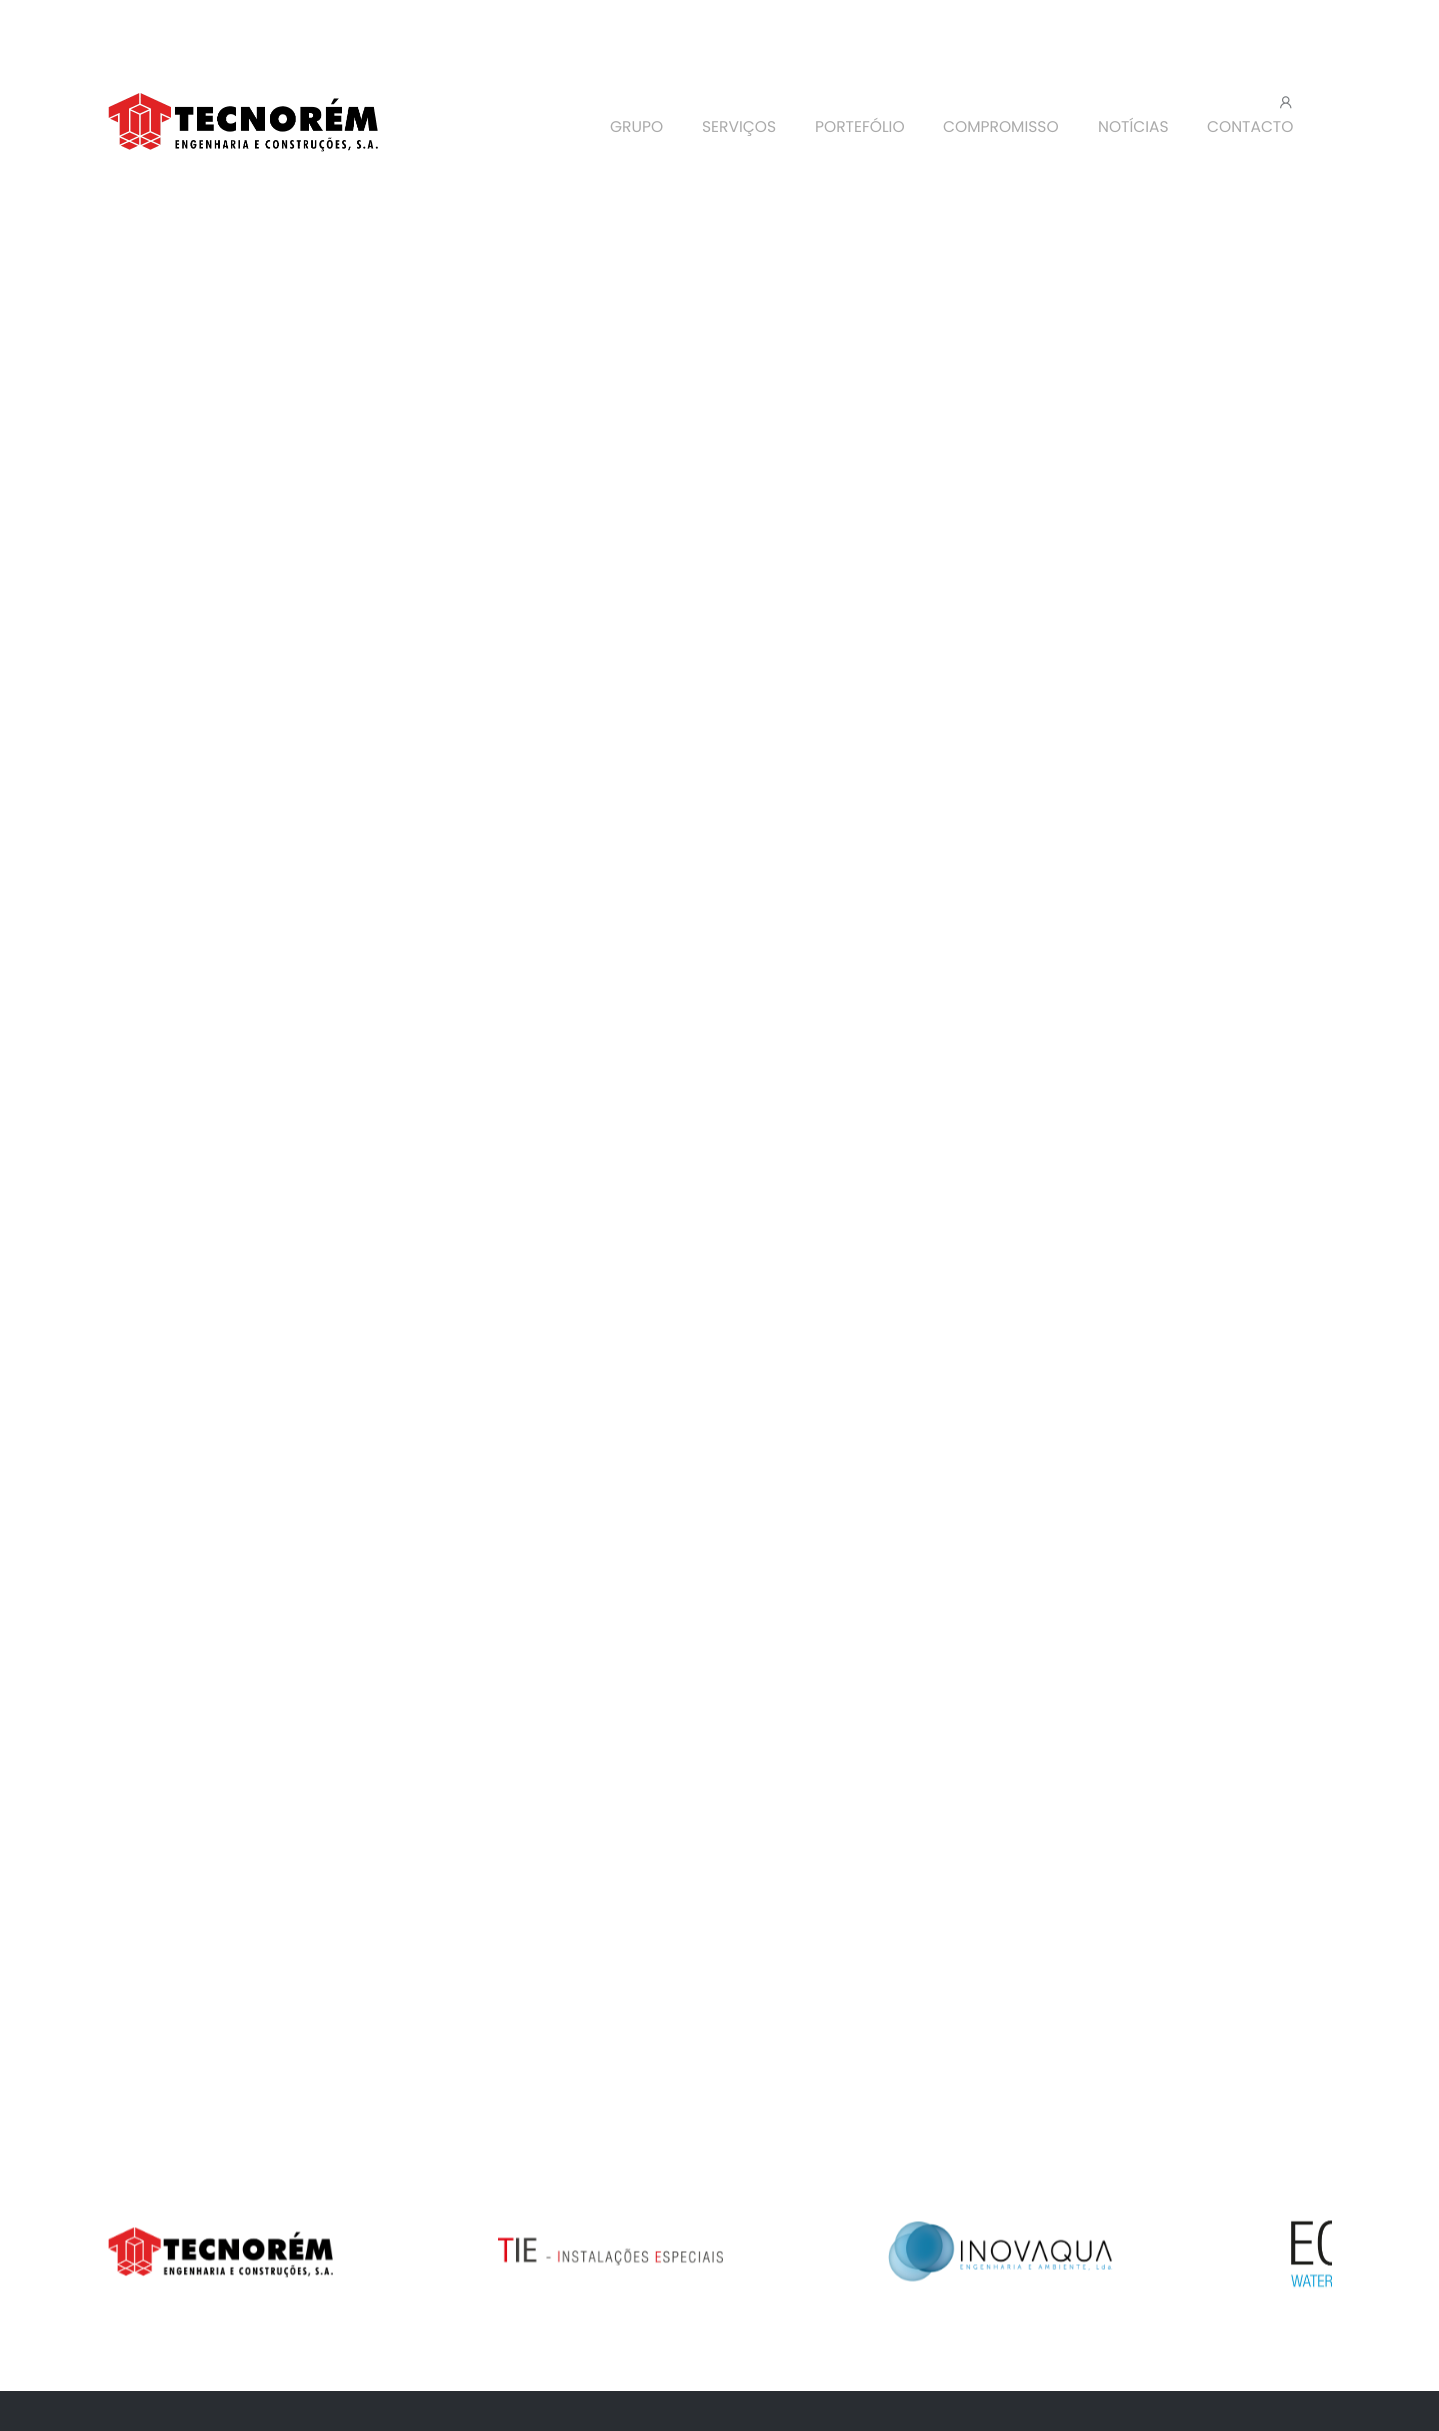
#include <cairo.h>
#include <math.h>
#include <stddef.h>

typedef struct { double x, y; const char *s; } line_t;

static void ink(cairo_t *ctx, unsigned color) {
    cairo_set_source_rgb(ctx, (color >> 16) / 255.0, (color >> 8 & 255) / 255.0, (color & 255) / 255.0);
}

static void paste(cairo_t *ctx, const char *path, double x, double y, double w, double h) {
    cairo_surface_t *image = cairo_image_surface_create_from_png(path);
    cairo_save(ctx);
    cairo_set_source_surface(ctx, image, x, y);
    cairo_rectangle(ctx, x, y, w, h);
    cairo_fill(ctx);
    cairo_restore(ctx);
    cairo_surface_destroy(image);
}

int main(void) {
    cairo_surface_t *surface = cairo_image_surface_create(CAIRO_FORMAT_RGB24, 1439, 2431);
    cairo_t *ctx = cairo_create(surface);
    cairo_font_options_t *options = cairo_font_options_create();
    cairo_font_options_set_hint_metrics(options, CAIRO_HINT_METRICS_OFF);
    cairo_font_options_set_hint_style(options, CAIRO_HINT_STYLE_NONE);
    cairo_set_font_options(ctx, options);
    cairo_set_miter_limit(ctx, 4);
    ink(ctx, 0xFFFFFF);
    cairo_paint(ctx);
    paste(ctx, "media/1.png", 108, 93, 270, 59);
    paste(ctx, "media/2.png", 1280, 96, 12, 13);
    cairo_select_font_face(ctx, "Poppins", CAIRO_FONT_SLANT_NORMAL, CAIRO_FONT_WEIGHT_NORMAL);
    cairo_set_font_size(ctx, 15.5);
    ink(ctx, 0xAAAAAA);
    {
        static const line_t items[] = {
            {610, 132, "GRUPO"},
            {702, 132, "SERVIÇOS"},
            {815, 132, "PORTEFÓLIO"},
            {943, 132, "COMPROMISSO"},
            {1098, 132, "NOTÍCIAS"},
            {1207, 132, "CONTACTO"},
        };
        for (size_t i = 0; i < sizeof items / sizeof *items; i++) {
            cairo_move_to(ctx, items[i].x, items[i].y);
            cairo_show_text(ctx, items[i].s);
        }
    }
    paste(ctx, "media/3.png", 108, 2227, 225, 51);
    paste(ctx, "media/4.png", 498, 2237, 225, 29);
    paste(ctx, "media/5.png", 888, 2221, 225, 61);
    paste(ctx, "media/6.png", 1290, 2220, 42, 69);
    ink(ctx, 0x292D32);
    cairo_rectangle(ctx, 0, 2391, 1439, 40);
    cairo_fill(ctx);
    cairo_surface_write_to_png(surface, "image.png");
    cairo_font_options_destroy(options);
    cairo_destroy(ctx);
    cairo_surface_destroy(surface);
    return 0;
}
